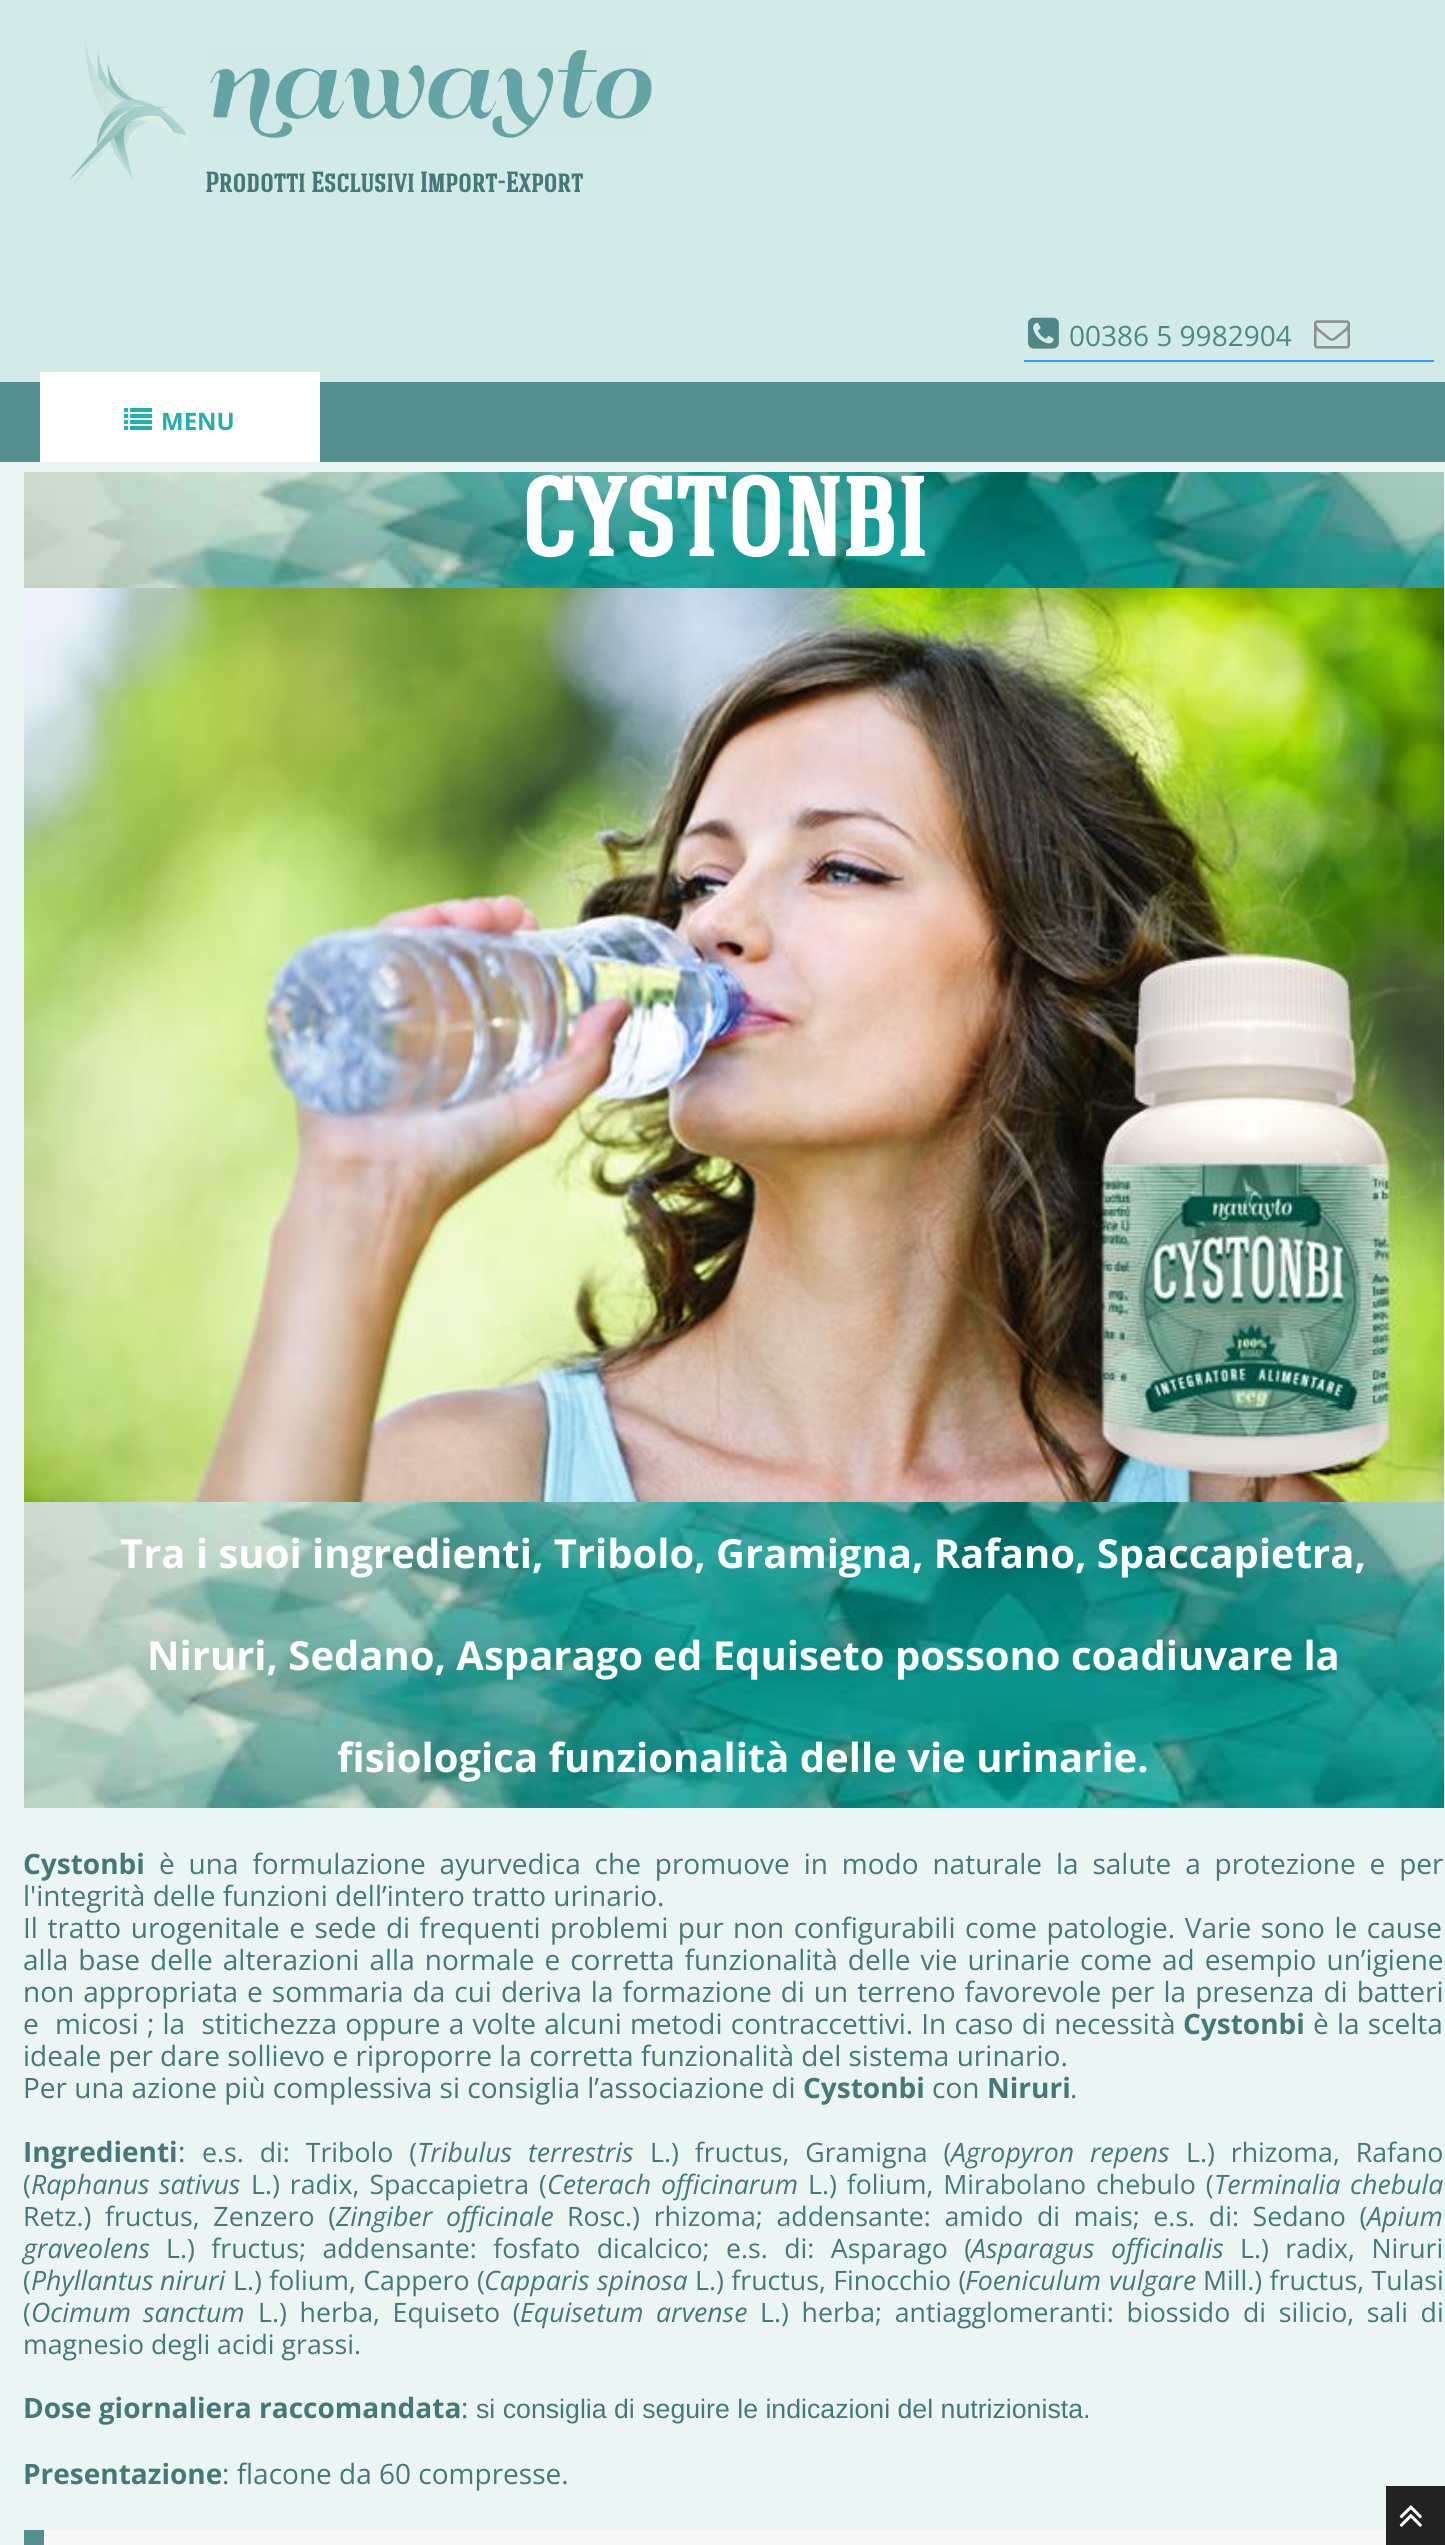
#include <cairo.h>
#include <math.h>
#include <stddef.h>

typedef struct { double x, y; const char *s; } line_t;
typedef struct { double x, y, w, h; unsigned color; } box_t;

static void ink(cairo_t *ctx, unsigned color) {
    cairo_set_source_rgb(ctx, (color >> 16) / 255.0, (color >> 8 & 255) / 255.0, (color & 255) / 255.0);
}

static void write_spaced(cairo_t *ctx, double x, double y, const char *s, double letter, double word) {
    cairo_move_to(ctx, x, y);
    while (*s) {
        char ch[5] = {0};
        int n = 0;
        do ch[n++] = *s++; while ((*s & 0xC0) == 0x80);
        cairo_show_text(ctx, ch);
        cairo_rel_move_to(ctx, letter + word * (*ch == ' '), 0);
    }
}

static void paste(cairo_t *ctx, const char *path, double x, double y, double w, double h) {
    cairo_surface_t *image = cairo_image_surface_create_from_png(path);
    cairo_save(ctx);
    cairo_set_source_surface(ctx, image, x, y);
    cairo_rectangle(ctx, x, y, w, h);
    cairo_fill(ctx);
    cairo_restore(ctx);
    cairo_surface_destroy(image);
}

int main(void) {
    cairo_surface_t *surface = cairo_image_surface_create(CAIRO_FORMAT_RGB24, 1445, 2545);
    cairo_t *ctx = cairo_create(surface);
    cairo_font_options_t *options = cairo_font_options_create();
    cairo_font_options_set_hint_metrics(options, CAIRO_HINT_METRICS_OFF);
    cairo_font_options_set_hint_style(options, CAIRO_HINT_STYLE_NONE);
    cairo_set_font_options(ctx, options);
    cairo_set_miter_limit(ctx, 4);
    ink(ctx, 0xD2EBE8);
    cairo_paint(ctx);
    paste(ctx, "media/1.png", 68, 42, 120, 147);
    paste(ctx, "media/2.png", 210, 50, 442, 88);
    cairo_select_font_face(ctx, "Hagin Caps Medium", CAIRO_FONT_SLANT_NORMAL, CAIRO_FONT_WEIGHT_BOLD);
    cairo_set_font_size(ctx, 28);
    ink(ctx, 0x447879);
    cairo_move_to(ctx, 205, 192);
    cairo_show_text(ctx, "Prodotti Esclusivi Import-Export");
    ink(ctx, 0x3399FF);
    cairo_rectangle(ctx, 1024, 360, 410, 2);
    cairo_fill(ctx);
    paste(ctx, "media/3.png", 1028, 317, 31, 32);
    cairo_select_font_face(ctx, "Open Sans", CAIRO_FONT_SLANT_NORMAL, CAIRO_FONT_WEIGHT_NORMAL);
    ink(ctx, 0x4F8687);
    cairo_move_to(ctx, 1069, 346);
    cairo_show_text(ctx, "00386 5 9982904");
    paste(ctx, "media/4.png", 1314, 320, 36, 29);
    ink(ctx, 0x559091);
    cairo_rectangle(ctx, 0, 382, 1445, 80);
    cairo_fill(ctx);
    ink(ctx, 0xFFFFFF);
    cairo_rectangle(ctx, 40, 372, 280, 90);
    cairo_fill(ctx);
    paste(ctx, "media/5.png", 124, 408, 28, 22);
    cairo_select_font_face(ctx, "Open Sans", CAIRO_FONT_SLANT_NORMAL, CAIRO_FONT_WEIGHT_BOLD);
    cairo_set_font_size(ctx, 24);
    ink(ctx, 0x20B2AA);
    cairo_move_to(ctx, 161, 430);
    cairo_show_text(ctx, "MENU");
    ink(ctx, 0xEBF5F4);
    cairo_rectangle(ctx, 0, 462, 1445, 2083);
    cairo_fill(ctx);
    paste(ctx, "media/6.png", 24, 472, 1420, 116);
    cairo_select_font_face(ctx, "Hagin Caps Medium", CAIRO_FONT_SLANT_NORMAL, CAIRO_FONT_WEIGHT_BOLD);
    cairo_set_font_size(ctx, 110);
    ink(ctx, 0xFFFFFF);
    cairo_move_to(ctx, 520, 556);
    cairo_show_text(ctx, "CYSTONBI");
    paste(ctx, "media/7.png", 24, 588, 1420, 914);
    paste(ctx, "media/8.png", 24, 1502, 1420, 306);
    cairo_select_font_face(ctx, "Open Sans", CAIRO_FONT_SLANT_NORMAL, CAIRO_FONT_WEIGHT_BOLD);
    cairo_set_font_size(ctx, 40);
    {
        static const line_t items[] = {
            {120, 1568, "Tra i suoi ingredienti, Tribolo, Gramigna, Rafano, Spaccapietra,"},
            {147, 1670, "Niruri, Sedano, Asparago ed Equiseto possono coadiuvare la"},
            {337, 1772, "fisiologica funzionalità delle vie urinarie."},
        };
        for (size_t i = 0; i < sizeof items / sizeof *items; i++) {
            cairo_move_to(ctx, items[i].x, items[i].y);
            cairo_show_text(ctx, items[i].s);
        }
    }
    cairo_set_font_size(ctx, 28);
    ink(ctx, 0x447879);
    cairo_move_to(ctx, 23, 1874);
    cairo_show_text(ctx, "Cystonbi");
    cairo_select_font_face(ctx, "Open Sans", CAIRO_FONT_SLANT_NORMAL, CAIRO_FONT_WEIGHT_NORMAL);
    write_spaced(ctx, 159, 1874, "è una formulazione ayurvedica che promuove in modo naturale la salute a protezione e per", 0, 6.6);
    cairo_move_to(ctx, 23, 1906);
    cairo_show_text(ctx, "l'integrità delle funzioni dell’intero tratto urinario.");
    write_spaced(ctx, 23, 1938, "Il tratto urogenitale e sede di frequenti problemi pur non configurabili come patologie. Varie sono le cause", 0, 2.25);
    write_spaced(ctx, 23, 1970, "alla base delle alterazioni alla normale e corretta funzionalità delle vie urinarie come ad esempio un’igiene", 0, 2.75);
    write_spaced(ctx, 23, 2002, "non appropriata e sommaria da cui deriva la formazione di un terreno favorevole per la presenza di batteri", 0, 1.75);
    write_spaced(ctx, 23, 2034, "e  micosi ; la  stitichezza oppure a volte alcuni metodi contraccettivi. In caso di necessità", 0, 0.9);
    cairo_select_font_face(ctx, "Open Sans", CAIRO_FONT_SLANT_NORMAL, CAIRO_FONT_WEIGHT_BOLD);
    cairo_move_to(ctx, 1183, 2034);
    cairo_show_text(ctx, "Cystonbi");
    cairo_select_font_face(ctx, "Open Sans", CAIRO_FONT_SLANT_NORMAL, CAIRO_FONT_WEIGHT_NORMAL);
    write_spaced(ctx, 1313, 2034, "è la scelta", 0, 0.9);
    cairo_move_to(ctx, 23, 2066);
    cairo_show_text(ctx, "ideale per dare sollievo e riproporre la corretta funzionalità del sistema urinario.");
    cairo_move_to(ctx, 23, 2098);
    cairo_show_text(ctx, "Per una azione più complessiva si consiglia l’associazione di");
    cairo_select_font_face(ctx, "Open Sans", CAIRO_FONT_SLANT_NORMAL, CAIRO_FONT_WEIGHT_BOLD);
    cairo_move_to(ctx, 803, 2098);
    cairo_show_text(ctx, "Cystonbi");
    cairo_select_font_face(ctx, "Open Sans", CAIRO_FONT_SLANT_NORMAL, CAIRO_FONT_WEIGHT_NORMAL);
    cairo_move_to(ctx, 932, 2098);
    cairo_show_text(ctx, "con");
    cairo_select_font_face(ctx, "Open Sans", CAIRO_FONT_SLANT_NORMAL, CAIRO_FONT_WEIGHT_BOLD);
    cairo_move_to(ctx, 987, 2098);
    cairo_show_text(ctx, "Niruri");
    cairo_select_font_face(ctx, "Open Sans", CAIRO_FONT_SLANT_NORMAL, CAIRO_FONT_WEIGHT_NORMAL);
    cairo_move_to(ctx, 1070, 2098);
    cairo_show_text(ctx, ".");
    cairo_select_font_face(ctx, "Open Sans", CAIRO_FONT_SLANT_NORMAL, CAIRO_FONT_WEIGHT_BOLD);
    cairo_move_to(ctx, 23, 2162);
    cairo_show_text(ctx, "Ingredienti");
    cairo_select_font_face(ctx, "Open Sans", CAIRO_FONT_SLANT_NORMAL, CAIRO_FONT_WEIGHT_NORMAL);
    cairo_move_to(ctx, 178, 2162);
    cairo_show_text(ctx, ":");
    cairo_set_font_size(ctx, 26.7);
    write_spaced(ctx, 202, 2162, "e.s. di: Tribolo (", 0, 9);
    cairo_select_font_face(ctx, "Open Sans", CAIRO_FONT_SLANT_ITALIC, CAIRO_FONT_WEIGHT_NORMAL);
    cairo_move_to(ctx, 417, 2162);
    cairo_show_text(ctx, "Tribulus");
    cairo_move_to(ctx, 528, 2162);
    cairo_show_text(ctx, "terrestris");
    cairo_select_font_face(ctx, "Open Sans", CAIRO_FONT_SLANT_NORMAL, CAIRO_FONT_WEIGHT_NORMAL);
    write_spaced(ctx, 650, 2162, "L.) fructus, Gramigna (", 0, 9);
    cairo_select_font_face(ctx, "Open Sans", CAIRO_FONT_SLANT_ITALIC, CAIRO_FONT_WEIGHT_NORMAL);
    cairo_move_to(ctx, 951, 2162);
    cairo_show_text(ctx, "Agropyron");
    cairo_move_to(ctx, 1090, 2162);
    cairo_show_text(ctx, "repens");
    cairo_select_font_face(ctx, "Open Sans", CAIRO_FONT_SLANT_NORMAL, CAIRO_FONT_WEIGHT_NORMAL);
    write_spaced(ctx, 1186, 2162, "L.) rhizoma, Rafano", 0, 9);
    cairo_move_to(ctx, 23, 2194);
    cairo_show_text(ctx, "(");
    cairo_select_font_face(ctx, "Open Sans", CAIRO_FONT_SLANT_ITALIC, CAIRO_FONT_WEIGHT_NORMAL);
    cairo_move_to(ctx, 31, 2194);
    cairo_show_text(ctx, "Raphanus");
    cairo_move_to(ctx, 159, 2194);
    cairo_show_text(ctx, "sativus");
    cairo_select_font_face(ctx, "Open Sans", CAIRO_FONT_SLANT_NORMAL, CAIRO_FONT_WEIGHT_NORMAL);
    write_spaced(ctx, 251, 2194, "L.) radix, Spaccapietra (", 0, 3);
    cairo_select_font_face(ctx, "Open Sans", CAIRO_FONT_SLANT_ITALIC, CAIRO_FONT_WEIGHT_NORMAL);
    cairo_move_to(ctx, 547, 2194);
    cairo_show_text(ctx, "Ceterach");
    cairo_move_to(ctx, 661, 2194);
    cairo_show_text(ctx, "officinarum");
    cairo_select_font_face(ctx, "Open Sans", CAIRO_FONT_SLANT_NORMAL, CAIRO_FONT_WEIGHT_NORMAL);
    write_spaced(ctx, 808, 2194, "L.) folium, Mirabolano chebulo (", 0, 3);
    cairo_select_font_face(ctx, "Open Sans", CAIRO_FONT_SLANT_ITALIC, CAIRO_FONT_WEIGHT_NORMAL);
    cairo_move_to(ctx, 1214, 2194);
    cairo_show_text(ctx, "Terminalia");
    cairo_move_to(ctx, 1350, 2194);
    cairo_show_text(ctx, "chebula");
    cairo_select_font_face(ctx, "Open Sans", CAIRO_FONT_SLANT_NORMAL, CAIRO_FONT_WEIGHT_NORMAL);
    write_spaced(ctx, 23, 2226, "Retz.) fructus, Zenzero (", 0, 6.75);
    cairo_select_font_face(ctx, "Open Sans", CAIRO_FONT_SLANT_ITALIC, CAIRO_FONT_WEIGHT_NORMAL);
    cairo_move_to(ctx, 336, 2226);
    cairo_show_text(ctx, "Zingiber");
    cairo_move_to(ctx, 446, 2226);
    cairo_show_text(ctx, "officinale");
    cairo_select_font_face(ctx, "Open Sans", CAIRO_FONT_SLANT_NORMAL, CAIRO_FONT_WEIGHT_NORMAL);
    write_spaced(ctx, 567, 2226, "Rosc.) rhizoma; addensante: amido di mais; e.s. di: Sedano (", 0, 6.75);
    cairo_select_font_face(ctx, "Open Sans", CAIRO_FONT_SLANT_ITALIC, CAIRO_FONT_WEIGHT_NORMAL);
    cairo_move_to(ctx, 1367, 2226);
    cairo_show_text(ctx, "Apium");
    cairo_move_to(ctx, 23, 2258);
    cairo_show_text(ctx, "graveolens");
    cairo_select_font_face(ctx, "Open Sans", CAIRO_FONT_SLANT_NORMAL, CAIRO_FONT_WEIGHT_NORMAL);
    write_spaced(ctx, 166, 2258, "L.) fructus; addensante: fosfato dicalcico; e.s. di: Asparago (", 0, 9.5);
    cairo_select_font_face(ctx, "Open Sans", CAIRO_FONT_SLANT_ITALIC, CAIRO_FONT_WEIGHT_NORMAL);
    cairo_move_to(ctx, 971, 2258);
    cairo_show_text(ctx, "Asparagus");
    cairo_move_to(ctx, 1111, 2258);
    cairo_show_text(ctx, "officinalis");
    cairo_select_font_face(ctx, "Open Sans", CAIRO_FONT_SLANT_NORMAL, CAIRO_FONT_WEIGHT_NORMAL);
    write_spaced(ctx, 1240, 2258, "L.) radix, Niruri", 0, 9.5);
    cairo_move_to(ctx, 23, 2290);
    cairo_show_text(ctx, "(");
    cairo_select_font_face(ctx, "Open Sans", CAIRO_FONT_SLANT_ITALIC, CAIRO_FONT_WEIGHT_NORMAL);
    cairo_move_to(ctx, 31, 2290);
    cairo_show_text(ctx, "Phyllantus");
    cairo_move_to(ctx, 160, 2290);
    cairo_show_text(ctx, "niruri");
    cairo_select_font_face(ctx, "Open Sans", CAIRO_FONT_SLANT_NORMAL, CAIRO_FONT_WEIGHT_NORMAL);
    write_spaced(ctx, 233, 2290, "L.) folium, Cappero (", 0, 0.5);
    cairo_select_font_face(ctx, "Open Sans", CAIRO_FONT_SLANT_ITALIC, CAIRO_FONT_WEIGHT_NORMAL);
    cairo_move_to(ctx, 484, 2290);
    cairo_show_text(ctx, "Capparis");
    cairo_move_to(ctx, 597, 2290);
    cairo_show_text(ctx, "spinosa");
    cairo_select_font_face(ctx, "Open Sans", CAIRO_FONT_SLANT_NORMAL, CAIRO_FONT_WEIGHT_NORMAL);
    write_spaced(ctx, 695, 2290, "L.) fructus, Finocchio (", 0, 0.5);
    cairo_select_font_face(ctx, "Open Sans", CAIRO_FONT_SLANT_ITALIC, CAIRO_FONT_WEIGHT_NORMAL);
    cairo_move_to(ctx, 965, 2290);
    cairo_show_text(ctx, "Foeniculum");
    cairo_move_to(ctx, 1109, 2290);
    cairo_show_text(ctx, "vulgare");
    cairo_select_font_face(ctx, "Open Sans", CAIRO_FONT_SLANT_NORMAL, CAIRO_FONT_WEIGHT_NORMAL);
    write_spaced(ctx, 1203, 2290, "Mill.) fructus, Tulasi", 0, 0.5);
    cairo_move_to(ctx, 23, 2322);
    cairo_show_text(ctx, "(");
    cairo_select_font_face(ctx, "Open Sans", CAIRO_FONT_SLANT_ITALIC, CAIRO_FONT_WEIGHT_NORMAL);
    cairo_move_to(ctx, 31, 2322);
    cairo_show_text(ctx, "Ocimum");
    cairo_move_to(ctx, 143, 2322);
    cairo_show_text(ctx, "sanctum");
    cairo_select_font_face(ctx, "Open Sans", CAIRO_FONT_SLANT_NORMAL, CAIRO_FONT_WEIGHT_NORMAL);
    write_spaced(ctx, 258, 2322, "L.) herba, Equiseto (", 0, 5.75);
    cairo_select_font_face(ctx, "Open Sans", CAIRO_FONT_SLANT_ITALIC, CAIRO_FONT_WEIGHT_NORMAL);
    cairo_move_to(ctx, 520, 2322);
    cairo_show_text(ctx, "Equisetum");
    cairo_move_to(ctx, 656, 2322);
    cairo_show_text(ctx, "arvense");
    cairo_select_font_face(ctx, "Open Sans", CAIRO_FONT_SLANT_NORMAL, CAIRO_FONT_WEIGHT_NORMAL);
    write_spaced(ctx, 760, 2322, "L.) herba; antiagglomeranti: biossido di silicio, sali di", 0, 5.75);
    cairo_move_to(ctx, 23, 2354);
    cairo_show_text(ctx, "magnesio degli acidi grassi.");
    cairo_select_font_face(ctx, "Open Sans", CAIRO_FONT_SLANT_NORMAL, CAIRO_FONT_WEIGHT_BOLD);
    cairo_set_font_size(ctx, 28);
    cairo_move_to(ctx, 23, 2418);
    cairo_show_text(ctx, "Dose giornaliera raccomandata");
    cairo_select_font_face(ctx, "Open Sans", CAIRO_FONT_SLANT_NORMAL, CAIRO_FONT_WEIGHT_NORMAL);
    cairo_move_to(ctx, 461, 2418);
    cairo_show_text(ctx, ":");
    cairo_select_font_face(ctx, "Liberation Sans", CAIRO_FONT_SLANT_NORMAL, CAIRO_FONT_WEIGHT_NORMAL);
    cairo_set_font_size(ctx, 26.7);
    cairo_move_to(ctx, 476, 2418);
    cairo_show_text(ctx, "si consiglia di seguire le indicazioni del nutrizionista.");
    cairo_select_font_face(ctx, "Open Sans", CAIRO_FONT_SLANT_NORMAL, CAIRO_FONT_WEIGHT_BOLD);
    cairo_set_font_size(ctx, 28);
    cairo_move_to(ctx, 23, 2484);
    cairo_show_text(ctx, "Presentazione");
    cairo_select_font_face(ctx, "Open Sans", CAIRO_FONT_SLANT_NORMAL, CAIRO_FONT_WEIGHT_NORMAL);
    cairo_move_to(ctx, 222, 2484);
    cairo_show_text(ctx, ": flacone da 60 compresse.");
    {
        static const box_t items[] = {
            {44, 2530, 1342, 15, 0xF6F6F6},
            {24, 2530, 20, 15, 0x559091},
            {1386, 2486, 59, 59, 0x222222},
        };
        for (size_t i = 0; i < sizeof items / sizeof *items; i++) {
            ink(ctx, items[i].color);
            cairo_rectangle(ctx, items[i].x, items[i].y, items[i].w, items[i].h);
            cairo_fill(ctx);
        }
    }
    paste(ctx, "media/9.png", 1399, 2505, 23, 22);
    cairo_surface_write_to_png(surface, "image.png");
    cairo_font_options_destroy(options);
    cairo_destroy(ctx);
    cairo_surface_destroy(surface);
    return 0;
}
